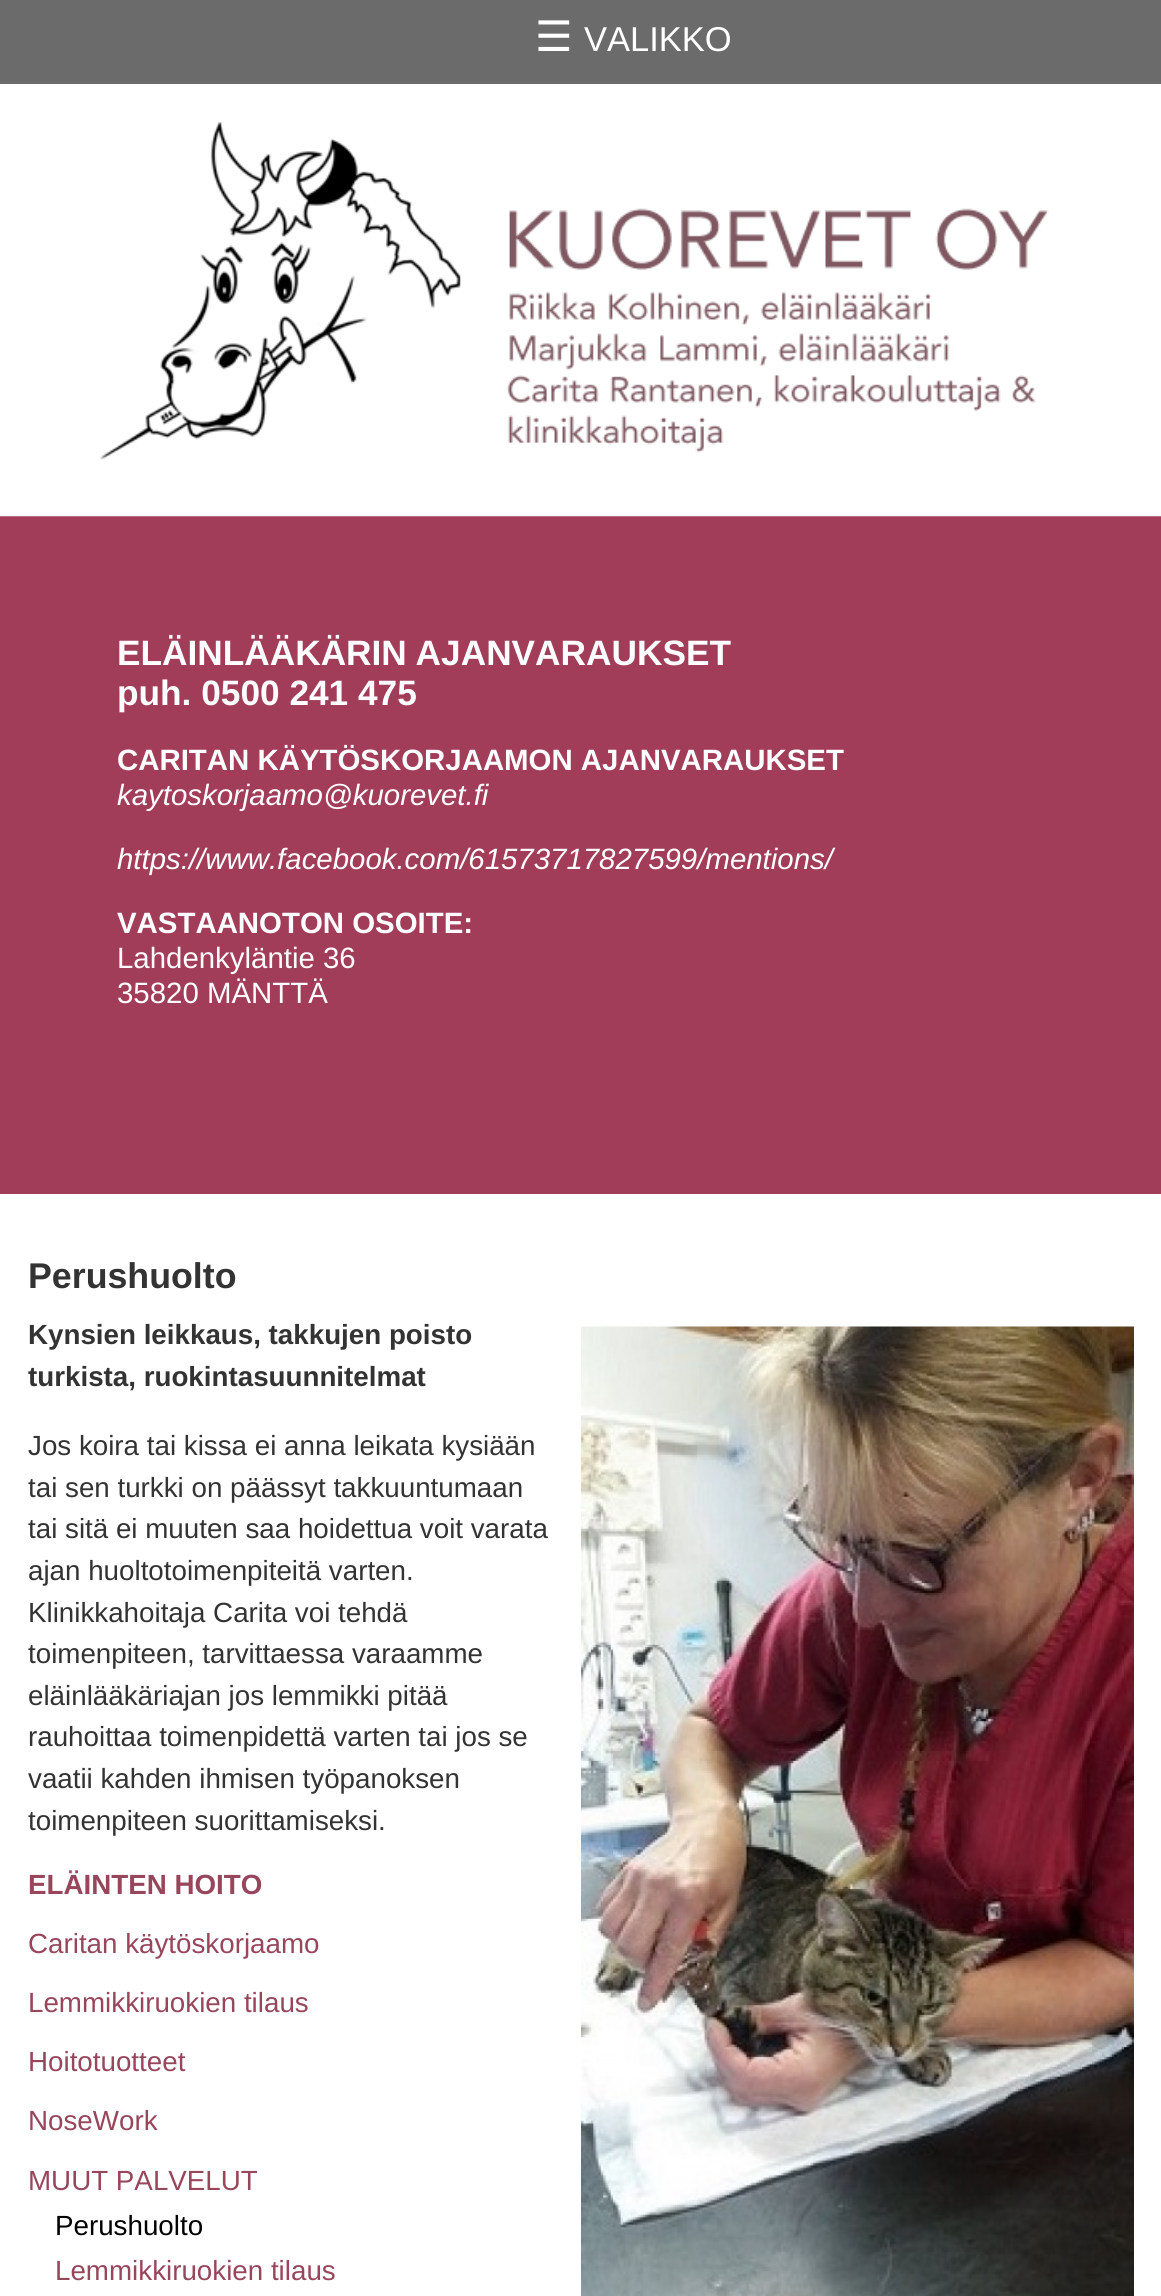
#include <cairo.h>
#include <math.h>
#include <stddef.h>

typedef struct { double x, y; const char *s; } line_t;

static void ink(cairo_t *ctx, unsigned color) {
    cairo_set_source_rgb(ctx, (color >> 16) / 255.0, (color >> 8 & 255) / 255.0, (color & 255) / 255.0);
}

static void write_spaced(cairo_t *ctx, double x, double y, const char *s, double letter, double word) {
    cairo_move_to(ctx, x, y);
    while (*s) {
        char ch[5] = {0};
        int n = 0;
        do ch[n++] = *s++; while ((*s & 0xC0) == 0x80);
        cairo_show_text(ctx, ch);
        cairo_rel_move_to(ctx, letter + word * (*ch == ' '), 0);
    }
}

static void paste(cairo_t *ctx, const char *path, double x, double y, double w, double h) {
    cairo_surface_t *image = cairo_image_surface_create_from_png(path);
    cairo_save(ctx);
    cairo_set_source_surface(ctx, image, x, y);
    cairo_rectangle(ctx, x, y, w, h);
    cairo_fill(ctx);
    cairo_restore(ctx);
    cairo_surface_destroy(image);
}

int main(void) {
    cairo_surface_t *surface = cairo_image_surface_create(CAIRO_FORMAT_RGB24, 1161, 2296);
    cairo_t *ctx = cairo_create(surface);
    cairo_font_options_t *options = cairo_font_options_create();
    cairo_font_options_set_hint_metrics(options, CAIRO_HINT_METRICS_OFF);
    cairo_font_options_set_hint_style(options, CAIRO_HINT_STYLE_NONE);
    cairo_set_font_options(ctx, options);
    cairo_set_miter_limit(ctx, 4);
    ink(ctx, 0xFFFFFF);
    cairo_paint(ctx);
    ink(ctx, 0x6B6B6B);
    cairo_rectangle(ctx, 0, 0, 1161, 84);
    cairo_fill(ctx);
    cairo_select_font_face(ctx, "DejaVu Sans", CAIRO_FONT_SLANT_NORMAL, CAIRO_FONT_WEIGHT_NORMAL);
    cairo_set_font_size(ctx, 42);
    ink(ctx, 0xFFFFFF);
    cairo_move_to(ctx, 535, 51);
    cairo_show_text(ctx, "☰");
    cairo_select_font_face(ctx, "Liberation Sans", CAIRO_FONT_SLANT_NORMAL, CAIRO_FONT_WEIGHT_NORMAL);
    cairo_set_font_size(ctx, 34.5);
    cairo_move_to(ctx, 584, 51);
    cairo_show_text(ctx, "VALIKKO");
    ink(ctx, 0xA23D59);
    cairo_rectangle(ctx, 0, 516, 1161, 678);
    cairo_fill(ctx);
    paste(ctx, "media/1.png", 0, 121, 1161, 396);
    cairo_select_font_face(ctx, "Liberation Sans", CAIRO_FONT_SLANT_NORMAL, CAIRO_FONT_WEIGHT_BOLD);
    cairo_set_font_size(ctx, 35.25);
    ink(ctx, 0xFFFFFF);
    write_spaced(ctx, 117, 665, "ELÄINLÄÄKÄRIN AJANVARAUKSET", 0, -1);
    cairo_move_to(ctx, 117, 705);
    cairo_show_text(ctx, "puh. 0500 241 475");
    cairo_set_font_size(ctx, 29.4);
    cairo_move_to(ctx, 117, 770);
    cairo_show_text(ctx, "CARITAN KÄYTÖSKORJAAMON AJANVARAUKSET");
    cairo_select_font_face(ctx, "Liberation Sans", CAIRO_FONT_SLANT_ITALIC, CAIRO_FONT_WEIGHT_NORMAL);
    cairo_move_to(ctx, 117, 805);
    cairo_show_text(ctx, "kaytoskorjaamo@kuorevet.fi");
    cairo_move_to(ctx, 117, 869);
    cairo_show_text(ctx, "https://www.facebook.com/61573717827599/mentions/");
    cairo_select_font_face(ctx, "Liberation Sans", CAIRO_FONT_SLANT_NORMAL, CAIRO_FONT_WEIGHT_BOLD);
    cairo_move_to(ctx, 117, 933);
    cairo_show_text(ctx, "VASTAANOTON OSOITE:");
    cairo_select_font_face(ctx, "Liberation Sans", CAIRO_FONT_SLANT_NORMAL, CAIRO_FONT_WEIGHT_NORMAL);
    cairo_move_to(ctx, 117, 968);
    cairo_show_text(ctx, "Lahdenkyläntie 36");
    cairo_move_to(ctx, 117, 1003);
    cairo_show_text(ctx, "35820 MÄNTTÄ");
    cairo_select_font_face(ctx, "Liberation Sans", CAIRO_FONT_SLANT_NORMAL, CAIRO_FONT_WEIGHT_BOLD);
    cairo_set_font_size(ctx, 35.75);
    ink(ctx, 0x333333);
    cairo_move_to(ctx, 28, 1288);
    cairo_show_text(ctx, "Perushuolto");
    cairo_set_font_size(ctx, 27.75);
    cairo_move_to(ctx, 28, 1344);
    cairo_show_text(ctx, "Kynsien leikkaus, takkujen poisto");
    cairo_move_to(ctx, 28, 1386);
    cairo_show_text(ctx, "turkista, ruokintasuunnitelmat");
    paste(ctx, "media/2.png", 581, 1326, 553, 970);
    cairo_select_font_face(ctx, "Liberation Sans", CAIRO_FONT_SLANT_NORMAL, CAIRO_FONT_WEIGHT_NORMAL);
    {
        static const line_t items[] = {
            {28, 1455, "Jos koira tai kissa ei anna leikata kysiään"},
            {28, 1497, "tai sen turkki on päässyt takkuuntumaan"},
            {28, 1538, "tai sitä ei muuten saa hoidettua voit varata"},
            {28, 1580, "ajan huoltotoimenpiteitä varten."},
            {28, 1622, "Klinikkahoitaja Carita voi tehdä"},
            {28, 1663, "toimenpiteen, tarvittaessa varaamme"},
            {28, 1705, "eläinlääkäriajan jos lemmikki pitää"},
            {28, 1746, "rauhoittaa toimenpidettä varten tai jos se"},
            {28, 1788, "vaatii kahden ihmisen työpanoksen"},
            {28, 1830, "toimenpiteen suorittamiseksi."},
        };
        for (size_t i = 0; i < sizeof items / sizeof *items; i++) {
            cairo_move_to(ctx, items[i].x, items[i].y);
            cairo_show_text(ctx, items[i].s);
        }
    }
    cairo_select_font_face(ctx, "Liberation Sans", CAIRO_FONT_SLANT_NORMAL, CAIRO_FONT_WEIGHT_BOLD);
    ink(ctx, 0x97465C);
    cairo_move_to(ctx, 28, 1894);
    cairo_show_text(ctx, "ELÄINTEN HOITO");
    cairo_select_font_face(ctx, "Liberation Sans", CAIRO_FONT_SLANT_NORMAL, CAIRO_FONT_WEIGHT_NORMAL);
    {
        static const line_t items[] = {
            {28, 1953, "Caritan käytöskorjaamo"},
            {28, 2012, "Lemmikkiruokien tilaus"},
            {28, 2071, "Hoitotuotteet"},
            {28, 2130, "NoseWork"},
            {28, 2190, "MUUT PALVELUT"},
        };
        for (size_t i = 0; i < sizeof items / sizeof *items; i++) {
            cairo_move_to(ctx, items[i].x, items[i].y);
            cairo_show_text(ctx, items[i].s);
        }
    }
    ink(ctx, 0x000000);
    cairo_move_to(ctx, 55, 2235);
    cairo_show_text(ctx, "Perushuolto");
    ink(ctx, 0x97465C);
    cairo_move_to(ctx, 55, 2280);
    cairo_show_text(ctx, "Lemmikkiruokien tilaus");
    cairo_surface_write_to_png(surface, "image.png");
    cairo_font_options_destroy(options);
    cairo_destroy(ctx);
    cairo_surface_destroy(surface);
    return 0;
}
